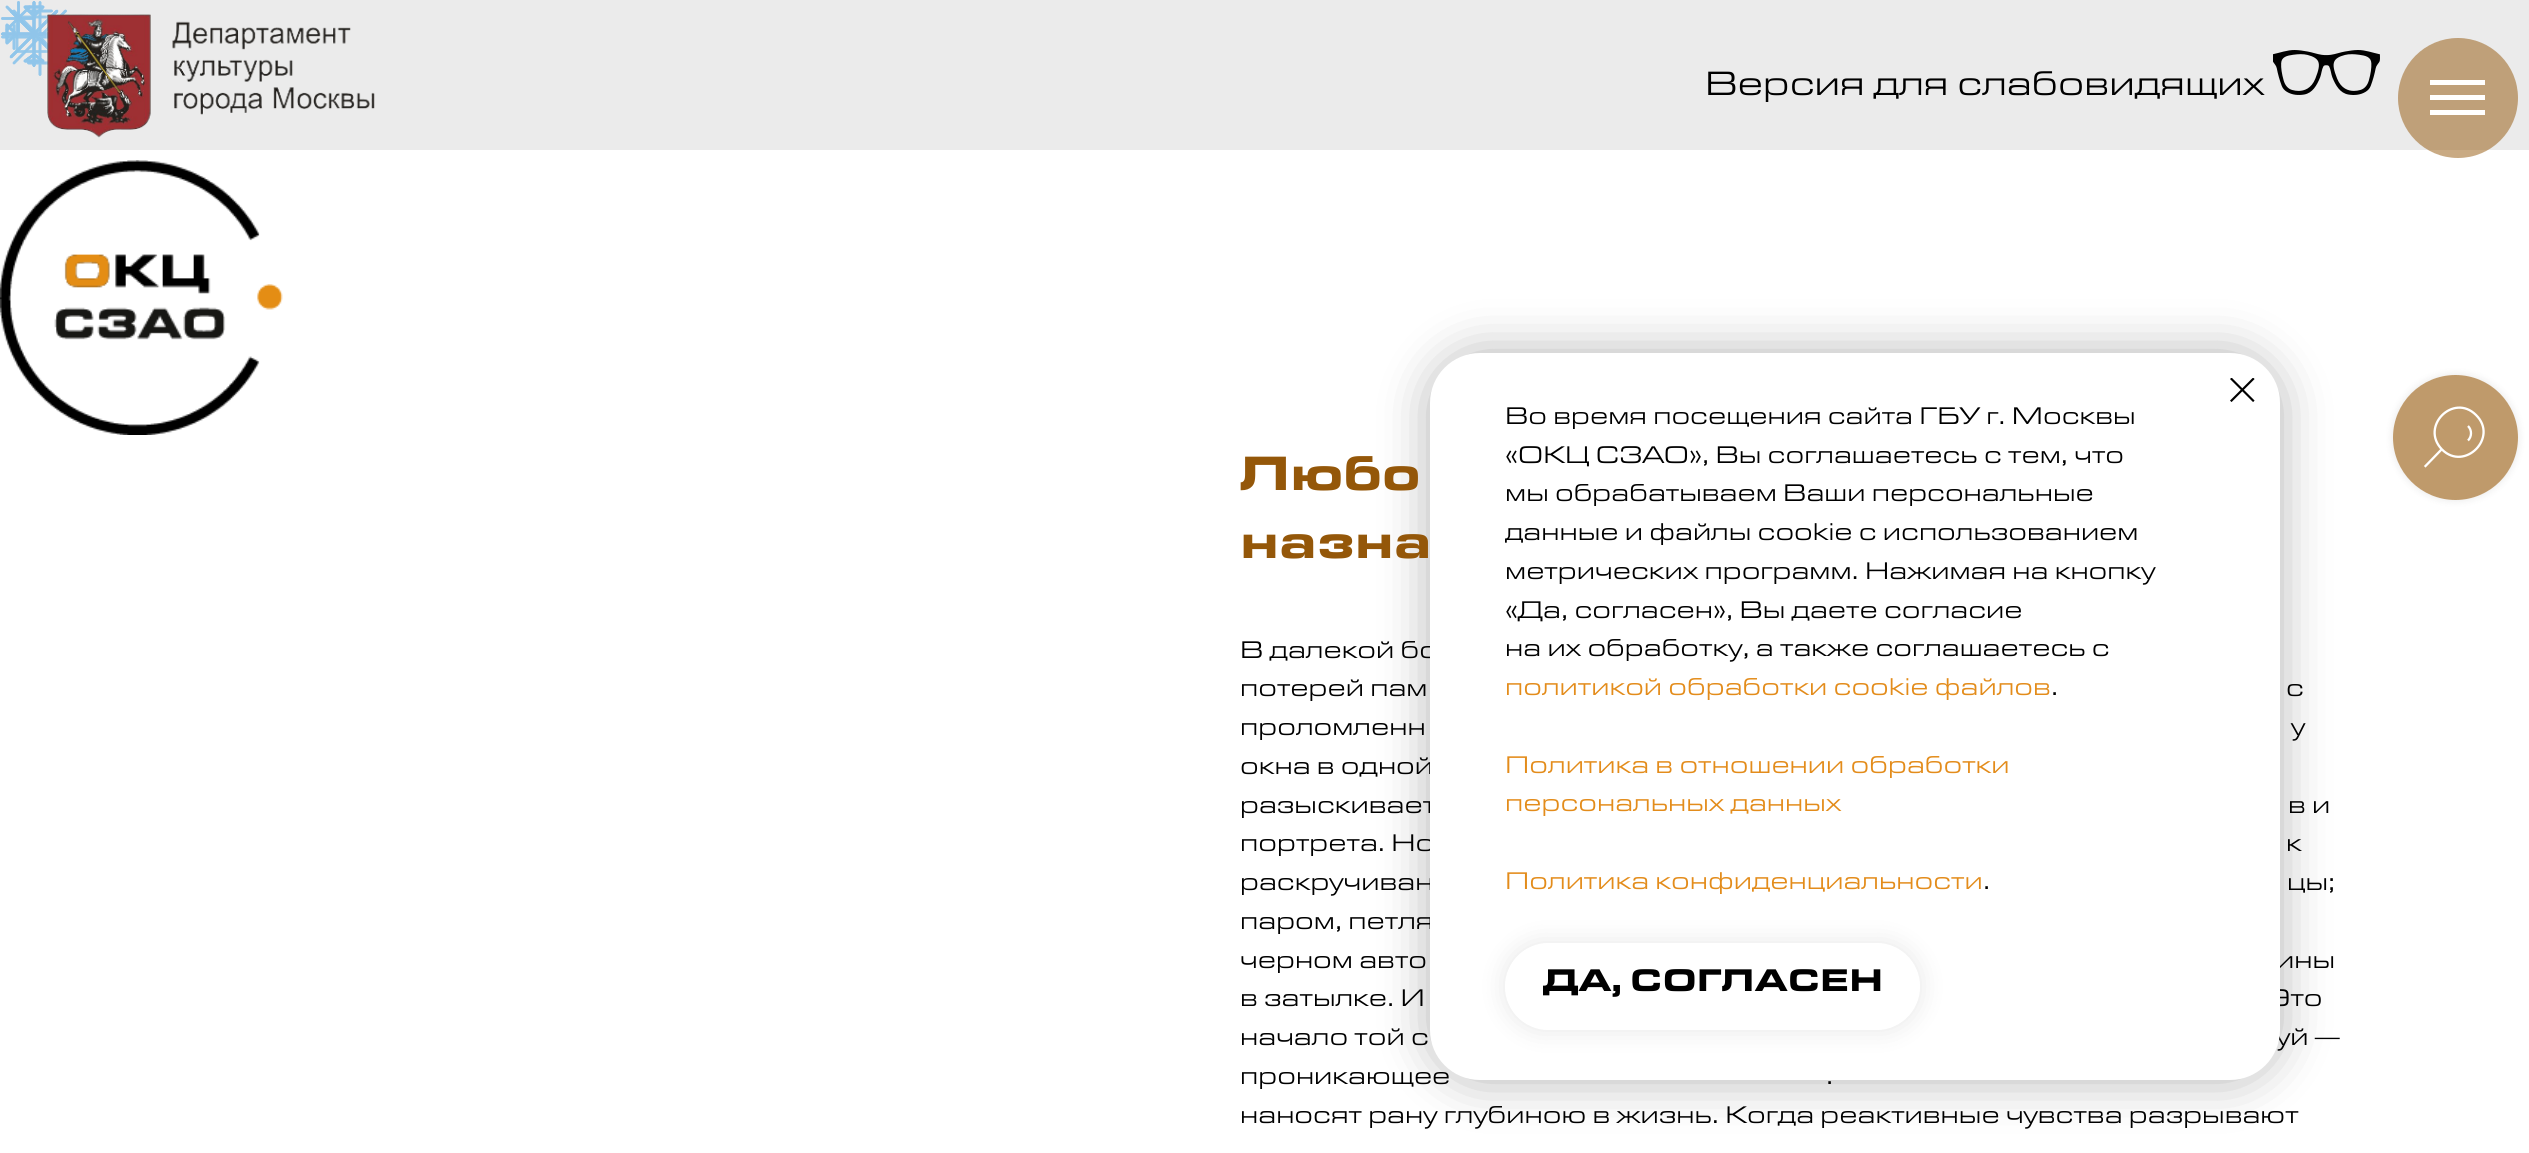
#include <cairo.h>
#include <math.h>
#include <stddef.h>

typedef struct { double x, y; const char *s; } line_t;
typedef struct { double x, y, w, h; unsigned color; } box_t;

static void ink(cairo_t *ctx, unsigned color) {
    cairo_set_source_rgb(ctx, (color >> 16) / 255.0, (color >> 8 & 255) / 255.0, (color & 255) / 255.0);
}

static void round_path(cairo_t *ctx, double x, double y, double w, double h, double r) {
    cairo_new_sub_path(ctx);
    cairo_arc(ctx, x + w - r, y + h - r, r, 0, M_PI / 2);
    cairo_arc(ctx, x + r, y + h - r, r, M_PI / 2, M_PI);
    cairo_arc(ctx, x + r, y + r, r, M_PI, 1.5 * M_PI);
    cairo_arc(ctx, x + w - r, y + r, r, 1.5 * M_PI, 2 * M_PI);
    cairo_close_path(ctx);
}

static void blur_box(cairo_t *ctx, double x, double y, double w, double h, double r, double blur, double alpha) {
    cairo_push_group_with_content(ctx, CAIRO_CONTENT_ALPHA);
    cairo_set_operator(ctx, CAIRO_OPERATOR_SOURCE);
    for (int i = 15; i >= -15 && fmin(w, h) + blur * i / 3 > 0; i -= 2) {
        double e = blur * i / 6;
        cairo_set_source_rgba(ctx, 0, 0, 0, alpha * erfc((i - 1) / 8.5) / 2);
        round_path(ctx, x - e, y - e, w + 2 * e, h + 2 * e, fmax(0, fmin(r + e + blur * .6, fmin(w, h) / 2 + e)));
        cairo_fill(ctx);
    }
    cairo_pattern_t *soft = cairo_pop_group(ctx);
    cairo_mask(ctx, soft);
    cairo_pattern_destroy(soft);
}

static void paste(cairo_t *ctx, const char *path, double x, double y, double w, double h) {
    cairo_surface_t *image = cairo_image_surface_create_from_png(path);
    cairo_save(ctx);
    cairo_set_source_surface(ctx, image, x, y);
    cairo_rectangle(ctx, x, y, w, h);
    cairo_fill(ctx);
    cairo_restore(ctx);
    cairo_surface_destroy(image);
}

int main(void) {
    cairo_surface_t *surface = cairo_image_surface_create(CAIRO_FORMAT_RGB24, 2529, 1153);
    cairo_t *ctx = cairo_create(surface);
    cairo_font_options_t *options = cairo_font_options_create();
    cairo_font_options_set_hint_metrics(options, CAIRO_HINT_METRICS_OFF);
    cairo_font_options_set_hint_style(options, CAIRO_HINT_STYLE_NONE);
    cairo_set_font_options(ctx, options);
    cairo_set_miter_limit(ctx, 4);
    ink(ctx, 0xFFFFFF);
    cairo_paint(ctx);
    ink(ctx, 0xEBEBEB);
    cairo_rectangle(ctx, 0, 0, 2529, 150);
    cairo_fill(ctx);
    cairo_new_path(ctx);
    cairo_move_to(ctx, 18.5, 2.5);
    cairo_line_to(ctx, 18.5, 34);
    cairo_move_to(ctx, 34, 18.5);
    cairo_line_to(ctx, 2.5, 18.5);
    cairo_move_to(ctx, 29.5, 7);
    cairo_line_to(ctx, 7, 29.5);
    cairo_move_to(ctx, 29.5, 29.5);
    cairo_line_to(ctx, 7, 7);
    ink(ctx, 0xD4E2EB);
    cairo_set_line_width(ctx, 2.5);
    cairo_set_line_cap(ctx, CAIRO_LINE_CAP_ROUND);
    cairo_set_line_join(ctx, CAIRO_LINE_JOIN_ROUND);
    cairo_stroke(ctx);
    cairo_new_path(ctx);
    cairo_move_to(ctx, 34, 2.5);
    cairo_line_to(ctx, 34, 65.5);
    cairo_move_to(ctx, 65.5, 34);
    cairo_line_to(ctx, 2.5, 34);
    cairo_move_to(ctx, 56.5, 11.5);
    cairo_line_to(ctx, 11.5, 56.5);
    cairo_move_to(ctx, 56.5, 56.5);
    cairo_line_to(ctx, 11.5, 11.5);
    cairo_move_to(ctx, 43, 7);
    cairo_line_to(ctx, 34, 16);
    cairo_line_to(ctx, 25, 7);
    cairo_close_path(ctx);
    cairo_move_to(ctx, 25, 61);
    cairo_line_to(ctx, 34, 54.5);
    cairo_line_to(ctx, 43, 61);
    cairo_close_path(ctx);
    cairo_move_to(ctx, 61, 43);
    cairo_line_to(ctx, 52, 34);
    cairo_line_to(ctx, 61, 25);
    cairo_close_path(ctx);
    cairo_move_to(ctx, 7, 25);
    cairo_line_to(ctx, 16, 34);
    cairo_line_to(ctx, 7, 43);
    cairo_close_path(ctx);
    cairo_set_source_rgba(ctx, 0.565, 0.773, 0.918, 0.29);
    cairo_stroke(ctx);
    cairo_new_path(ctx);
    cairo_move_to(ctx, 34, 2.5);
    cairo_line_to(ctx, 34, 65.5);
    cairo_move_to(ctx, 65.5, 34);
    cairo_line_to(ctx, 2.5, 34);
    cairo_move_to(ctx, 56.5, 11.5);
    cairo_line_to(ctx, 11.5, 56.5);
    cairo_move_to(ctx, 56.5, 56.5);
    cairo_line_to(ctx, 11.5, 11.5);
    cairo_move_to(ctx, 43, 7);
    cairo_line_to(ctx, 34, 16);
    cairo_line_to(ctx, 25, 7);
    cairo_close_path(ctx);
    cairo_move_to(ctx, 25, 61);
    cairo_line_to(ctx, 34, 54.5);
    cairo_line_to(ctx, 43, 61);
    cairo_close_path(ctx);
    cairo_move_to(ctx, 61, 43);
    cairo_line_to(ctx, 52, 34);
    cairo_line_to(ctx, 61, 25);
    cairo_close_path(ctx);
    cairo_move_to(ctx, 7, 25);
    cairo_line_to(ctx, 16, 34);
    cairo_line_to(ctx, 7, 43);
    cairo_close_path(ctx);
    cairo_set_source_rgba(ctx, 0.565, 0.773, 0.918, 0.36);
    cairo_stroke(ctx);
    cairo_new_path(ctx);
    cairo_move_to(ctx, 34, 2.5);
    cairo_line_to(ctx, 34, 65.5);
    cairo_move_to(ctx, 65.5, 34);
    cairo_line_to(ctx, 2.5, 34);
    cairo_move_to(ctx, 56.5, 11.5);
    cairo_line_to(ctx, 11.5, 56.5);
    cairo_move_to(ctx, 56.5, 56.5);
    cairo_line_to(ctx, 11.5, 11.5);
    cairo_move_to(ctx, 43, 7);
    cairo_line_to(ctx, 34, 16);
    cairo_line_to(ctx, 25, 7);
    cairo_close_path(ctx);
    cairo_move_to(ctx, 25, 61);
    cairo_line_to(ctx, 34, 54.5);
    cairo_line_to(ctx, 43, 61);
    cairo_close_path(ctx);
    cairo_move_to(ctx, 61, 43);
    cairo_line_to(ctx, 52, 34);
    cairo_line_to(ctx, 61, 25);
    cairo_close_path(ctx);
    cairo_move_to(ctx, 7, 25);
    cairo_line_to(ctx, 16, 34);
    cairo_line_to(ctx, 7, 43);
    cairo_close_path(ctx);
    cairo_set_source_rgba(ctx, 0.565, 0.773, 0.918, 0.45);
    cairo_stroke(ctx);
    cairo_new_path(ctx);
    cairo_move_to(ctx, 18.5, 2.5);
    cairo_line_to(ctx, 18.5, 34);
    cairo_move_to(ctx, 34, 18.5);
    cairo_line_to(ctx, 2.5, 18.5);
    cairo_move_to(ctx, 29.5, 7);
    cairo_line_to(ctx, 7, 29.5);
    cairo_move_to(ctx, 29.5, 29.5);
    cairo_line_to(ctx, 7, 7);
    cairo_set_source_rgba(ctx, 0.565, 0.773, 0.918, 0.47);
    cairo_stroke(ctx);
    cairo_new_path(ctx);
    cairo_move_to(ctx, 34, 2.5);
    cairo_line_to(ctx, 34, 65.5);
    cairo_move_to(ctx, 65.5, 34);
    cairo_line_to(ctx, 2.5, 34);
    cairo_move_to(ctx, 57, 57);
    cairo_line_to(ctx, 11, 11);
    cairo_move_to(ctx, 57, 11);
    cairo_line_to(ctx, 11, 57);
    cairo_close_path(ctx);
    cairo_move_to(ctx, 17, 17);
    cairo_line_to(ctx, 51.5, 17);
    cairo_line_to(ctx, 51.5, 51.5);
    cairo_line_to(ctx, 17, 51.5);
    cairo_close_path(ctx);
    cairo_set_source_rgba(ctx, 0.565, 0.773, 0.918, 0.34);
    cairo_stroke(ctx);
    cairo_new_path(ctx);
    cairo_move_to(ctx, 34, 2.5);
    cairo_line_to(ctx, 34, 65.5);
    cairo_move_to(ctx, 65.5, 34);
    cairo_line_to(ctx, 2.5, 34);
    cairo_move_to(ctx, 56.5, 11.5);
    cairo_line_to(ctx, 11.5, 56.5);
    cairo_move_to(ctx, 56.5, 56.5);
    cairo_line_to(ctx, 11.5, 11.5);
    cairo_move_to(ctx, 43, 7);
    cairo_line_to(ctx, 34, 16);
    cairo_line_to(ctx, 25, 7);
    cairo_close_path(ctx);
    cairo_move_to(ctx, 25, 61);
    cairo_line_to(ctx, 34, 54.5);
    cairo_line_to(ctx, 43, 61);
    cairo_close_path(ctx);
    cairo_move_to(ctx, 61, 43);
    cairo_line_to(ctx, 52, 34);
    cairo_line_to(ctx, 61, 25);
    cairo_close_path(ctx);
    cairo_move_to(ctx, 7, 25);
    cairo_line_to(ctx, 16, 34);
    cairo_line_to(ctx, 7, 43);
    cairo_close_path(ctx);
    cairo_set_source_rgba(ctx, 0.565, 0.773, 0.918, 0.3);
    cairo_stroke(ctx);
    cairo_new_path(ctx);
    cairo_move_to(ctx, 18.5, 2.5);
    cairo_line_to(ctx, 18.5, 34);
    cairo_move_to(ctx, 34, 18.5);
    cairo_line_to(ctx, 2.5, 18.5);
    cairo_move_to(ctx, 29.5, 7);
    cairo_line_to(ctx, 7, 29.5);
    cairo_move_to(ctx, 29.5, 29.5);
    cairo_line_to(ctx, 7, 7);
    cairo_set_source_rgba(ctx, 0.565, 0.773, 0.918, 0.37);
    cairo_stroke(ctx);
    cairo_new_path(ctx);
    cairo_move_to(ctx, 40, 2.5);
    cairo_line_to(ctx, 40, 74.5);
    cairo_move_to(ctx, 74.5, 37);
    cairo_line_to(ctx, 2.5, 37);
    cairo_move_to(ctx, 65.5, 11);
    cairo_line_to(ctx, 14, 63);
    cairo_move_to(ctx, 65.5, 63);
    cairo_line_to(ctx, 14, 11);
    cairo_move_to(ctx, 51.5, 11);
    cairo_line_to(ctx, 28.5, 11);
    cairo_move_to(ctx, 51.5, 63);
    cairo_line_to(ctx, 28.5, 63);
    cairo_move_to(ctx, 65.5, 48.5);
    cairo_line_to(ctx, 65.5, 25.5);
    cairo_move_to(ctx, 14, 48.5);
    cairo_line_to(ctx, 14, 25.5);
    cairo_set_source_rgba(ctx, 0.565, 0.773, 0.918, 0.29);
    cairo_stroke(ctx);
    cairo_new_path(ctx);
    cairo_move_to(ctx, 40, 2.5);
    cairo_line_to(ctx, 40, 74.5);
    cairo_move_to(ctx, 74.5, 37);
    cairo_line_to(ctx, 2.5, 37);
    cairo_move_to(ctx, 65.5, 11);
    cairo_line_to(ctx, 14, 63);
    cairo_move_to(ctx, 65.5, 63);
    cairo_line_to(ctx, 14, 11);
    cairo_move_to(ctx, 51.5, 11);
    cairo_line_to(ctx, 28.5, 11);
    cairo_move_to(ctx, 51.5, 63);
    cairo_line_to(ctx, 28.5, 63);
    cairo_move_to(ctx, 65.5, 48.5);
    cairo_line_to(ctx, 65.5, 25.5);
    cairo_move_to(ctx, 14, 48.5);
    cairo_line_to(ctx, 14, 25.5);
    cairo_set_source_rgba(ctx, 0.565, 0.773, 0.918, 0.07);
    cairo_stroke(ctx);
    cairo_new_path(ctx);
    cairo_move_to(ctx, 34, 2.5);
    cairo_line_to(ctx, 34, 65.5);
    cairo_move_to(ctx, 65.5, 34);
    cairo_line_to(ctx, 2.5, 34);
    cairo_move_to(ctx, 57, 57);
    cairo_line_to(ctx, 11, 11);
    cairo_move_to(ctx, 57, 11);
    cairo_line_to(ctx, 11, 57);
    cairo_close_path(ctx);
    cairo_move_to(ctx, 17, 17);
    cairo_line_to(ctx, 51.5, 17);
    cairo_line_to(ctx, 51.5, 51.5);
    cairo_line_to(ctx, 17, 51.5);
    cairo_close_path(ctx);
    cairo_set_source_rgba(ctx, 0.565, 0.773, 0.918, 0.29);
    cairo_stroke(ctx);
    cairo_new_path(ctx);
    cairo_move_to(ctx, 40, 2.5);
    cairo_line_to(ctx, 40, 74.5);
    cairo_move_to(ctx, 74.5, 37);
    cairo_line_to(ctx, 2.5, 37);
    cairo_move_to(ctx, 65.5, 11);
    cairo_line_to(ctx, 14, 63);
    cairo_move_to(ctx, 65.5, 63);
    cairo_line_to(ctx, 14, 11);
    cairo_move_to(ctx, 51.5, 11);
    cairo_line_to(ctx, 28.5, 11);
    cairo_move_to(ctx, 51.5, 63);
    cairo_line_to(ctx, 28.5, 63);
    cairo_move_to(ctx, 65.5, 48.5);
    cairo_line_to(ctx, 65.5, 25.5);
    cairo_move_to(ctx, 14, 48.5);
    cairo_line_to(ctx, 14, 25.5);
    cairo_set_source_rgba(ctx, 0.565, 0.773, 0.918, 0.1);
    cairo_stroke(ctx);
    cairo_new_path(ctx);
    cairo_move_to(ctx, 34, 2.5);
    cairo_line_to(ctx, 34, 65.5);
    cairo_move_to(ctx, 65.5, 34);
    cairo_line_to(ctx, 2.5, 34);
    cairo_move_to(ctx, 57, 57);
    cairo_line_to(ctx, 11, 11);
    cairo_move_to(ctx, 57, 11);
    cairo_line_to(ctx, 11, 57);
    cairo_close_path(ctx);
    cairo_move_to(ctx, 17, 17);
    cairo_line_to(ctx, 51.5, 17);
    cairo_line_to(ctx, 51.5, 51.5);
    cairo_line_to(ctx, 17, 51.5);
    cairo_close_path(ctx);
    cairo_set_source_rgba(ctx, 0.565, 0.773, 0.918, 0.31);
    cairo_stroke(ctx);
    cairo_new_path(ctx);
    cairo_move_to(ctx, 34, 2.5);
    cairo_line_to(ctx, 34, 65.5);
    cairo_move_to(ctx, 65.5, 34);
    cairo_line_to(ctx, 2.5, 34);
    cairo_move_to(ctx, 57, 57);
    cairo_line_to(ctx, 11, 11);
    cairo_move_to(ctx, 57, 11);
    cairo_line_to(ctx, 11, 57);
    cairo_close_path(ctx);
    cairo_move_to(ctx, 17, 17);
    cairo_line_to(ctx, 51.5, 17);
    cairo_line_to(ctx, 51.5, 51.5);
    cairo_line_to(ctx, 17, 51.5);
    cairo_close_path(ctx);
    cairo_set_source_rgba(ctx, 0.565, 0.773, 0.918, 0.4);
    cairo_stroke(ctx);
    cairo_new_path(ctx);
    cairo_move_to(ctx, 40, 2.5);
    cairo_line_to(ctx, 40, 74.5);
    cairo_move_to(ctx, 74.5, 37);
    cairo_line_to(ctx, 2.5, 37);
    cairo_move_to(ctx, 65.5, 11);
    cairo_line_to(ctx, 14, 63);
    cairo_move_to(ctx, 65.5, 63);
    cairo_line_to(ctx, 14, 11);
    cairo_move_to(ctx, 51.5, 11);
    cairo_line_to(ctx, 28.5, 11);
    cairo_move_to(ctx, 51.5, 63);
    cairo_line_to(ctx, 28.5, 63);
    cairo_move_to(ctx, 65.5, 48.5);
    cairo_line_to(ctx, 65.5, 25.5);
    cairo_move_to(ctx, 14, 48.5);
    cairo_line_to(ctx, 14, 25.5);
    cairo_set_source_rgba(ctx, 0.565, 0.773, 0.918, 0.2);
    cairo_stroke(ctx);
    cairo_new_path(ctx);
    cairo_move_to(ctx, 18.5, 2.5);
    cairo_line_to(ctx, 18.5, 34);
    cairo_move_to(ctx, 34, 18.5);
    cairo_line_to(ctx, 2.5, 18.5);
    cairo_move_to(ctx, 29.5, 7);
    cairo_line_to(ctx, 7, 29.5);
    cairo_move_to(ctx, 29.5, 29.5);
    cairo_line_to(ctx, 7, 7);
    cairo_set_source_rgba(ctx, 0.565, 0.773, 0.918, 0.24);
    cairo_stroke(ctx);
    cairo_new_path(ctx);
    cairo_move_to(ctx, 34, 2.5);
    cairo_line_to(ctx, 34, 65.5);
    cairo_move_to(ctx, 65.5, 34);
    cairo_line_to(ctx, 2.5, 34);
    cairo_move_to(ctx, 56.5, 11.5);
    cairo_line_to(ctx, 11.5, 56.5);
    cairo_move_to(ctx, 56.5, 56.5);
    cairo_line_to(ctx, 11.5, 11.5);
    cairo_move_to(ctx, 43, 7);
    cairo_line_to(ctx, 34, 16);
    cairo_line_to(ctx, 25, 7);
    cairo_close_path(ctx);
    cairo_move_to(ctx, 25, 61);
    cairo_line_to(ctx, 34, 54.5);
    cairo_line_to(ctx, 43, 61);
    cairo_close_path(ctx);
    cairo_move_to(ctx, 61, 43);
    cairo_line_to(ctx, 52, 34);
    cairo_line_to(ctx, 61, 25);
    cairo_close_path(ctx);
    cairo_move_to(ctx, 7, 25);
    cairo_line_to(ctx, 16, 34);
    cairo_line_to(ctx, 7, 43);
    cairo_close_path(ctx);
    cairo_set_source_rgba(ctx, 0.565, 0.773, 0.918, 0.28);
    cairo_stroke(ctx);
    cairo_new_path(ctx);
    cairo_move_to(ctx, 40, 2.5);
    cairo_line_to(ctx, 40, 74.5);
    cairo_move_to(ctx, 74.5, 37);
    cairo_line_to(ctx, 2.5, 37);
    cairo_move_to(ctx, 65.5, 11);
    cairo_line_to(ctx, 14, 63);
    cairo_move_to(ctx, 65.5, 63);
    cairo_line_to(ctx, 14, 11);
    cairo_move_to(ctx, 51.5, 11);
    cairo_line_to(ctx, 28.5, 11);
    cairo_move_to(ctx, 51.5, 63);
    cairo_line_to(ctx, 28.5, 63);
    cairo_move_to(ctx, 65.5, 48.5);
    cairo_line_to(ctx, 65.5, 25.5);
    cairo_move_to(ctx, 14, 48.5);
    cairo_line_to(ctx, 14, 25.5);
    cairo_set_source_rgba(ctx, 0.565, 0.773, 0.918, 0.39);
    cairo_stroke(ctx);
    cairo_new_path(ctx);
    cairo_move_to(ctx, 34, 2.5);
    cairo_line_to(ctx, 34, 65.5);
    cairo_move_to(ctx, 65.5, 34);
    cairo_line_to(ctx, 2.5, 34);
    cairo_move_to(ctx, 56.5, 11.5);
    cairo_line_to(ctx, 11.5, 56.5);
    cairo_move_to(ctx, 56.5, 56.5);
    cairo_line_to(ctx, 11.5, 11.5);
    cairo_move_to(ctx, 43, 7);
    cairo_line_to(ctx, 34, 16);
    cairo_line_to(ctx, 25, 7);
    cairo_close_path(ctx);
    cairo_move_to(ctx, 25, 61);
    cairo_line_to(ctx, 34, 54.5);
    cairo_line_to(ctx, 43, 61);
    cairo_close_path(ctx);
    cairo_move_to(ctx, 61, 43);
    cairo_line_to(ctx, 52, 34);
    cairo_line_to(ctx, 61, 25);
    cairo_close_path(ctx);
    cairo_move_to(ctx, 7, 25);
    cairo_line_to(ctx, 16, 34);
    cairo_line_to(ctx, 7, 43);
    cairo_close_path(ctx);
    cairo_stroke(ctx);
    cairo_new_path(ctx);
    cairo_move_to(ctx, 18.5, 2.5);
    cairo_line_to(ctx, 18.5, 34);
    cairo_move_to(ctx, 34, 18.5);
    cairo_line_to(ctx, 2.5, 18.5);
    cairo_move_to(ctx, 29.5, 7);
    cairo_line_to(ctx, 7, 29.5);
    cairo_move_to(ctx, 29.5, 29.5);
    cairo_line_to(ctx, 7, 7);
    cairo_set_source_rgba(ctx, 0.565, 0.773, 0.918, 0.38);
    cairo_stroke(ctx);
    cairo_new_path(ctx);
    cairo_move_to(ctx, 18.5, 2.5);
    cairo_line_to(ctx, 18.5, 34);
    cairo_move_to(ctx, 34, 18.5);
    cairo_line_to(ctx, 2.5, 18.5);
    cairo_move_to(ctx, 29.5, 7);
    cairo_line_to(ctx, 7, 29.5);
    cairo_move_to(ctx, 29.5, 29.5);
    cairo_line_to(ctx, 7, 7);
    cairo_set_source_rgba(ctx, 0.565, 0.773, 0.918, 0.46);
    cairo_stroke(ctx);
    cairo_new_path(ctx);
    cairo_move_to(ctx, 40, 2.5);
    cairo_line_to(ctx, 40, 74.5);
    cairo_move_to(ctx, 74.5, 37);
    cairo_line_to(ctx, 2.5, 37);
    cairo_move_to(ctx, 65.5, 11);
    cairo_line_to(ctx, 14, 63);
    cairo_move_to(ctx, 65.5, 63);
    cairo_line_to(ctx, 14, 11);
    cairo_move_to(ctx, 51.5, 11);
    cairo_line_to(ctx, 28.5, 11);
    cairo_move_to(ctx, 51.5, 63);
    cairo_line_to(ctx, 28.5, 63);
    cairo_move_to(ctx, 65.5, 48.5);
    cairo_line_to(ctx, 65.5, 25.5);
    cairo_move_to(ctx, 14, 48.5);
    cairo_line_to(ctx, 14, 25.5);
    cairo_set_source_rgba(ctx, 0.565, 0.773, 0.918, 0.42);
    cairo_stroke(ctx);
    cairo_new_path(ctx);
    cairo_move_to(ctx, 34, 2.5);
    cairo_line_to(ctx, 34, 65.5);
    cairo_move_to(ctx, 65.5, 34);
    cairo_line_to(ctx, 2.5, 34);
    cairo_move_to(ctx, 56.5, 11.5);
    cairo_line_to(ctx, 11.5, 56.5);
    cairo_move_to(ctx, 56.5, 56.5);
    cairo_line_to(ctx, 11.5, 11.5);
    cairo_move_to(ctx, 43, 7);
    cairo_line_to(ctx, 34, 16);
    cairo_line_to(ctx, 25, 7);
    cairo_close_path(ctx);
    cairo_move_to(ctx, 25, 61);
    cairo_line_to(ctx, 34, 54.5);
    cairo_line_to(ctx, 43, 61);
    cairo_close_path(ctx);
    cairo_move_to(ctx, 61, 43);
    cairo_line_to(ctx, 52, 34);
    cairo_line_to(ctx, 61, 25);
    cairo_close_path(ctx);
    cairo_move_to(ctx, 7, 25);
    cairo_line_to(ctx, 16, 34);
    cairo_line_to(ctx, 7, 43);
    cairo_close_path(ctx);
    cairo_set_source_rgba(ctx, 0.565, 0.773, 0.918, 0.35);
    cairo_stroke(ctx);
    cairo_new_path(ctx);
    cairo_move_to(ctx, 18.5, 2.5);
    cairo_line_to(ctx, 18.5, 34);
    cairo_move_to(ctx, 34, 18.5);
    cairo_line_to(ctx, 2.5, 18.5);
    cairo_move_to(ctx, 29.5, 7);
    cairo_line_to(ctx, 7, 29.5);
    cairo_move_to(ctx, 29.5, 29.5);
    cairo_line_to(ctx, 7, 7);
    cairo_set_source_rgba(ctx, 0.565, 0.773, 0.918, 0.41);
    cairo_stroke(ctx);
    cairo_new_path(ctx);
    cairo_move_to(ctx, 34, 2.5);
    cairo_line_to(ctx, 34, 65.5);
    cairo_move_to(ctx, 65.5, 34);
    cairo_line_to(ctx, 2.5, 34);
    cairo_move_to(ctx, 56.5, 11.5);
    cairo_line_to(ctx, 11.5, 56.5);
    cairo_move_to(ctx, 56.5, 56.5);
    cairo_line_to(ctx, 11.5, 11.5);
    cairo_move_to(ctx, 43, 7);
    cairo_line_to(ctx, 34, 16);
    cairo_line_to(ctx, 25, 7);
    cairo_close_path(ctx);
    cairo_move_to(ctx, 25, 61);
    cairo_line_to(ctx, 34, 54.5);
    cairo_line_to(ctx, 43, 61);
    cairo_close_path(ctx);
    cairo_move_to(ctx, 61, 43);
    cairo_line_to(ctx, 52, 34);
    cairo_line_to(ctx, 61, 25);
    cairo_close_path(ctx);
    cairo_move_to(ctx, 7, 25);
    cairo_line_to(ctx, 16, 34);
    cairo_line_to(ctx, 7, 43);
    cairo_close_path(ctx);
    cairo_set_source_rgba(ctx, 0.565, 0.773, 0.918, 0.37);
    cairo_stroke(ctx);
    cairo_new_path(ctx);
    cairo_move_to(ctx, 40, 2.5);
    cairo_line_to(ctx, 40, 74.5);
    cairo_move_to(ctx, 74.5, 37);
    cairo_line_to(ctx, 2.5, 37);
    cairo_move_to(ctx, 65.5, 11);
    cairo_line_to(ctx, 14, 63);
    cairo_move_to(ctx, 65.5, 63);
    cairo_line_to(ctx, 14, 11);
    cairo_move_to(ctx, 51.5, 11);
    cairo_line_to(ctx, 28.5, 11);
    cairo_move_to(ctx, 51.5, 63);
    cairo_line_to(ctx, 28.5, 63);
    cairo_move_to(ctx, 65.5, 48.5);
    cairo_line_to(ctx, 65.5, 25.5);
    cairo_move_to(ctx, 14, 48.5);
    cairo_line_to(ctx, 14, 25.5);
    cairo_set_source_rgba(ctx, 0.565, 0.773, 0.918, 0.2);
    cairo_stroke(ctx);
    cairo_new_path(ctx);
    cairo_move_to(ctx, 40, 2.5);
    cairo_line_to(ctx, 40, 74.5);
    cairo_move_to(ctx, 74.5, 37);
    cairo_line_to(ctx, 2.5, 37);
    cairo_move_to(ctx, 65.5, 11);
    cairo_line_to(ctx, 14, 63);
    cairo_move_to(ctx, 65.5, 63);
    cairo_line_to(ctx, 14, 11);
    cairo_move_to(ctx, 51.5, 11);
    cairo_line_to(ctx, 28.5, 11);
    cairo_move_to(ctx, 51.5, 63);
    cairo_line_to(ctx, 28.5, 63);
    cairo_move_to(ctx, 65.5, 48.5);
    cairo_line_to(ctx, 65.5, 25.5);
    cairo_move_to(ctx, 14, 48.5);
    cairo_line_to(ctx, 14, 25.5);
    cairo_set_source_rgba(ctx, 0.565, 0.773, 0.918, 0.41);
    cairo_stroke(ctx);
    cairo_new_path(ctx);
    cairo_move_to(ctx, 34, 2.5);
    cairo_line_to(ctx, 34, 65.5);
    cairo_move_to(ctx, 65.5, 34);
    cairo_line_to(ctx, 2.5, 34);
    cairo_move_to(ctx, 56.5, 11.5);
    cairo_line_to(ctx, 11.5, 56.5);
    cairo_move_to(ctx, 56.5, 56.5);
    cairo_line_to(ctx, 11.5, 11.5);
    cairo_move_to(ctx, 43, 7);
    cairo_line_to(ctx, 34, 16);
    cairo_line_to(ctx, 25, 7);
    cairo_close_path(ctx);
    cairo_move_to(ctx, 25, 61);
    cairo_line_to(ctx, 34, 54.5);
    cairo_line_to(ctx, 43, 61);
    cairo_close_path(ctx);
    cairo_move_to(ctx, 61, 43);
    cairo_line_to(ctx, 52, 34);
    cairo_line_to(ctx, 61, 25);
    cairo_close_path(ctx);
    cairo_move_to(ctx, 7, 25);
    cairo_line_to(ctx, 16, 34);
    cairo_line_to(ctx, 7, 43);
    cairo_close_path(ctx);
    cairo_set_source_rgba(ctx, 0.565, 0.773, 0.918, 0.46);
    cairo_stroke(ctx);
    cairo_new_path(ctx);
    cairo_move_to(ctx, 34, 2.5);
    cairo_line_to(ctx, 34, 65.5);
    cairo_move_to(ctx, 65.5, 34);
    cairo_line_to(ctx, 2.5, 34);
    cairo_move_to(ctx, 56.5, 11.5);
    cairo_line_to(ctx, 11.5, 56.5);
    cairo_move_to(ctx, 56.5, 56.5);
    cairo_line_to(ctx, 11.5, 11.5);
    cairo_move_to(ctx, 43, 7);
    cairo_line_to(ctx, 34, 16);
    cairo_line_to(ctx, 25, 7);
    cairo_close_path(ctx);
    cairo_move_to(ctx, 25, 61);
    cairo_line_to(ctx, 34, 54.5);
    cairo_line_to(ctx, 43, 61);
    cairo_close_path(ctx);
    cairo_move_to(ctx, 61, 43);
    cairo_line_to(ctx, 52, 34);
    cairo_line_to(ctx, 61, 25);
    cairo_close_path(ctx);
    cairo_move_to(ctx, 7, 25);
    cairo_line_to(ctx, 16, 34);
    cairo_line_to(ctx, 7, 43);
    cairo_close_path(ctx);
    cairo_stroke(ctx);
    cairo_new_path(ctx);
    cairo_move_to(ctx, 40, 2.5);
    cairo_line_to(ctx, 40, 74.5);
    cairo_move_to(ctx, 74.5, 37);
    cairo_line_to(ctx, 2.5, 37);
    cairo_move_to(ctx, 65.5, 11);
    cairo_line_to(ctx, 14, 63);
    cairo_move_to(ctx, 65.5, 63);
    cairo_line_to(ctx, 14, 11);
    cairo_move_to(ctx, 51.5, 11);
    cairo_line_to(ctx, 28.5, 11);
    cairo_move_to(ctx, 51.5, 63);
    cairo_line_to(ctx, 28.5, 63);
    cairo_move_to(ctx, 65.5, 48.5);
    cairo_line_to(ctx, 65.5, 25.5);
    cairo_move_to(ctx, 14, 48.5);
    cairo_line_to(ctx, 14, 25.5);
    cairo_set_source_rgba(ctx, 0.565, 0.773, 0.918, 0.35);
    cairo_stroke(ctx);
    cairo_new_path(ctx);
    cairo_move_to(ctx, 34, 2.5);
    cairo_line_to(ctx, 34, 65.5);
    cairo_move_to(ctx, 65.5, 34);
    cairo_line_to(ctx, 2.5, 34);
    cairo_move_to(ctx, 57, 57);
    cairo_line_to(ctx, 11, 11);
    cairo_move_to(ctx, 57, 11);
    cairo_line_to(ctx, 11, 57);
    cairo_close_path(ctx);
    cairo_move_to(ctx, 17, 17);
    cairo_line_to(ctx, 51.5, 17);
    cairo_line_to(ctx, 51.5, 51.5);
    cairo_line_to(ctx, 17, 51.5);
    cairo_close_path(ctx);
    cairo_set_source_rgba(ctx, 0.565, 0.773, 0.918, 0.42);
    cairo_stroke(ctx);
    cairo_new_path(ctx);
    cairo_move_to(ctx, 18.5, 2.5);
    cairo_line_to(ctx, 18.5, 34);
    cairo_move_to(ctx, 34, 18.5);
    cairo_line_to(ctx, 2.5, 18.5);
    cairo_move_to(ctx, 29.5, 7);
    cairo_line_to(ctx, 7, 29.5);
    cairo_move_to(ctx, 29.5, 29.5);
    cairo_line_to(ctx, 7, 7);
    cairo_set_source_rgba(ctx, 0.565, 0.773, 0.918, 0.48);
    cairo_stroke(ctx);
    cairo_new_path(ctx);
    cairo_move_to(ctx, 34, 2.5);
    cairo_line_to(ctx, 34, 65.5);
    cairo_move_to(ctx, 65.5, 34);
    cairo_line_to(ctx, 2.5, 34);
    cairo_move_to(ctx, 56.5, 11.5);
    cairo_line_to(ctx, 11.5, 56.5);
    cairo_move_to(ctx, 56.5, 56.5);
    cairo_line_to(ctx, 11.5, 11.5);
    cairo_move_to(ctx, 43, 7);
    cairo_line_to(ctx, 34, 16);
    cairo_line_to(ctx, 25, 7);
    cairo_close_path(ctx);
    cairo_move_to(ctx, 25, 61);
    cairo_line_to(ctx, 34, 54.5);
    cairo_line_to(ctx, 43, 61);
    cairo_close_path(ctx);
    cairo_move_to(ctx, 61, 43);
    cairo_line_to(ctx, 52, 34);
    cairo_line_to(ctx, 61, 25);
    cairo_close_path(ctx);
    cairo_move_to(ctx, 7, 25);
    cairo_line_to(ctx, 16, 34);
    cairo_line_to(ctx, 7, 43);
    cairo_close_path(ctx);
    cairo_stroke(ctx);
    cairo_new_path(ctx);
    cairo_move_to(ctx, 34, 2.5);
    cairo_line_to(ctx, 34, 65.5);
    cairo_move_to(ctx, 65.5, 34);
    cairo_line_to(ctx, 2.5, 34);
    cairo_move_to(ctx, 56.5, 11.5);
    cairo_line_to(ctx, 11.5, 56.5);
    cairo_move_to(ctx, 56.5, 56.5);
    cairo_line_to(ctx, 11.5, 11.5);
    cairo_move_to(ctx, 43, 7);
    cairo_line_to(ctx, 34, 16);
    cairo_line_to(ctx, 25, 7);
    cairo_close_path(ctx);
    cairo_move_to(ctx, 25, 61);
    cairo_line_to(ctx, 34, 54.5);
    cairo_line_to(ctx, 43, 61);
    cairo_close_path(ctx);
    cairo_move_to(ctx, 61, 43);
    cairo_line_to(ctx, 52, 34);
    cairo_line_to(ctx, 61, 25);
    cairo_close_path(ctx);
    cairo_move_to(ctx, 7, 25);
    cairo_line_to(ctx, 16, 34);
    cairo_line_to(ctx, 7, 43);
    cairo_close_path(ctx);
    cairo_set_source_rgba(ctx, 0.565, 0.773, 0.918, 0.37);
    cairo_stroke(ctx);
    paste(ctx, "media/1.png", 46, 14, 329, 124);
    cairo_select_font_face(ctx, "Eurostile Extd", CAIRO_FONT_SLANT_NORMAL, CAIRO_FONT_WEIGHT_NORMAL);
    cairo_set_font_size(ctx, 35);
    ink(ctx, 0x000000);
    cairo_move_to(ctx, 1705, 95);
    cairo_show_text(ctx, "Версия для слабовидящих");
    paste(ctx, "media/2.png", 2273, 50, 107, 45);
    paste(ctx, "media/3.png", 0, 160, 283, 275);
    cairo_set_source_rgba(ctx, 0.58, 0.341, 0.035, 0.5);
    cairo_arc(ctx, 2458, 98, 60, 0, 2 * M_PI);
    cairo_fill(ctx);
    {
        static const box_t items[] = {
            {2430, 80, 55, 5, 0xFFFFFF},
            {2430, 95, 55, 5, 0xFFFFFF},
            {2430, 110, 55, 5, 0xFFFFFF},
        };
        for (size_t i = 0; i < sizeof items / sizeof *items; i++) {
            ink(ctx, items[i].color);
            cairo_rectangle(ctx, items[i].x, items[i].y, items[i].w, items[i].h);
            cairo_fill(ctx);
        }
    }
    ink(ctx, 0x000000);
    blur_box(ctx, 1430, 353, 850, 727, 50, 25, 0.3);
    cairo_set_font_size(ctx, 25);
    ink(ctx, 0x000000);
    {
        static const line_t items[] = {
            {1240, 658, "В далекой бо"},
            {1240, 774, "окна в одной"},
            {1240, 813, "разыскивает"},
            {1240, 851, "портрета. Но"},
            {1240, 890, "раскручиван"},
            {1240, 929, "паром, петля"},
            {2276, 968, "ины"},
            {2267, 1006, "Это"},
            {2276, 1045, "уй —"},
            {1240, 1084, "проникающее"},
        };
        for (size_t i = 0; i < sizeof items / sizeof *items; i++) {
            cairo_move_to(ctx, items[i].x, items[i].y);
            cairo_show_text(ctx, items[i].s);
        }
    }
    ink(ctx, 0xFFFFFF);
    round_path(ctx, 1430, 353, 850, 727, 50);
    cairo_fill(ctx);
    paste(ctx, "media/4.png", 2230, 378, 25, 24);
    ink(ctx, 0x000000);
    {
        static const line_t items[] = {
            {1505, 424, "Во время посещения сайта ГБУ г. Москвы"},
            {1505, 463, "«ОКЦ СЗАО», Вы соглашаетесь с тем, что"},
            {1505, 501, "мы обрабатываем Ваши персональные"},
            {1505, 540, "данные и файлы cookie с использованием"},
            {1505, 579, "метрических программ. Нажимая на кнопку"},
            {1505, 618, "«Да, согласен», Вы даете согласие"},
            {1505, 656, "на их обработку, а также соглашаетесь с"},
        };
        for (size_t i = 0; i < sizeof items / sizeof *items; i++) {
            cairo_move_to(ctx, items[i].x, items[i].y);
            cairo_show_text(ctx, items[i].s);
        }
    }
    ink(ctx, 0xE38C1B);
    cairo_move_to(ctx, 1505, 695);
    cairo_show_text(ctx, "политикой обработки cookie файлов");
    ink(ctx, 0x000000);
    cairo_move_to(ctx, 2051, 695);
    cairo_show_text(ctx, ".");
    ink(ctx, 0xE38C1B);
    {
        static const line_t items[] = {
            {1505, 773, "Политика в отношении обработки"},
            {1505, 811, "персональных данных"},
            {1505, 889, "Политика конфиденциальности"},
        };
        for (size_t i = 0; i < sizeof items / sizeof *items; i++) {
            cairo_move_to(ctx, items[i].x, items[i].y);
            cairo_show_text(ctx, items[i].s);
        }
    }
    ink(ctx, 0x000000);
    cairo_move_to(ctx, 1983, 889);
    cairo_show_text(ctx, ".");
    cairo_save(ctx);
    cairo_set_fill_rule(ctx, CAIRO_FILL_RULE_EVEN_ODD);
    cairo_new_path(ctx);
    cairo_move_to(ctx, 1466, 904);
    cairo_line_to(ctx, 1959, 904);
    cairo_line_to(ctx, 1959, 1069);
    cairo_line_to(ctx, 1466, 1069);
    cairo_close_path(ctx);
    cairo_move_to(ctx, 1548.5, 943);
    cairo_line_to(ctx, 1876.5, 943);
    cairo_curve_to(ctx, 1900.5, 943, 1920, 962.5, 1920, 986.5);
    cairo_curve_to(ctx, 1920, 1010.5, 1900.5, 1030, 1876.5, 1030);
    cairo_line_to(ctx, 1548.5, 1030);
    cairo_curve_to(ctx, 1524.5, 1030, 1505, 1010.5, 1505, 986.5);
    cairo_curve_to(ctx, 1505, 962.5, 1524.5, 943, 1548.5, 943);
    cairo_close_path(ctx);
    cairo_clip(ctx);
    ink(ctx, 0x000000);
    blur_box(ctx, 1505, 943, 415, 87, 43.5, 12.5, 0.1);
    cairo_restore(ctx);
    cairo_save(ctx);
    cairo_rectangle(ctx, 1543, 963, 340, 47);
    cairo_clip(ctx);
    cairo_select_font_face(ctx, "Eurostile Extd Black", CAIRO_FONT_SLANT_NORMAL, CAIRO_FONT_WEIGHT_NORMAL);
    cairo_set_font_size(ctx, 32.5);
    cairo_move_to(ctx, 1543, 991);
    cairo_show_text(ctx, "ДА, СОГЛАСЕН");
    cairo_restore(ctx);
    cairo_save(ctx);
    cairo_set_fill_rule(ctx, CAIRO_FILL_RULE_EVEN_ODD);
    cairo_new_path(ctx);
    cairo_move_to(ctx, 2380, 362);
    cairo_line_to(ctx, 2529, 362);
    cairo_line_to(ctx, 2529, 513);
    cairo_line_to(ctx, 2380, 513);
    cairo_close_path(ctx);
    cairo_move_to(ctx, 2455.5, 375);
    cairo_curve_to(ctx, 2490, 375, 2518, 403, 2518, 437.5);
    cairo_curve_to(ctx, 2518, 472, 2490, 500, 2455.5, 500);
    cairo_curve_to(ctx, 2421, 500, 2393, 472, 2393, 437.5);
    cairo_curve_to(ctx, 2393, 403, 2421, 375, 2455.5, 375);
    cairo_close_path(ctx);
    cairo_clip(ctx);
    ink(ctx, 0x000000);
    blur_box(ctx, 2393, 375, 125, 125, 62.5, 4, 0.1);
    cairo_restore(ctx);
    cairo_set_source_rgba(ctx, 0.58, 0.341, 0.035, 0.6);
    cairo_arc(ctx, 2455.5, 437.5, 62.5, 0, 2 * M_PI);
    cairo_fill(ctx);
    cairo_new_path(ctx);
    cairo_move_to(ctx, 2441, 450);
    cairo_line_to(ctx, 2425.5, 466);
    ink(ctx, 0xFFFFFF);
    cairo_set_line_width(ctx, 2.3);
    cairo_set_line_cap(ctx, CAIRO_LINE_CAP_SQUARE);
    cairo_set_line_join(ctx, CAIRO_LINE_JOIN_MITER);
    cairo_stroke(ctx);
    cairo_new_path(ctx);
    cairo_move_to(ctx, 2476, 415);
    cairo_curve_to(ctx, 2499, 437.5, 2464.5, 472, 2442, 449.5);
    cairo_curve_to(ctx, 2419.5, 426.5, 2453.5, 392.5, 2476, 415);
    cairo_close_path(ctx);
    cairo_move_to(ctx, 2468, 426);
    cairo_curve_to(ctx, 2472, 430, 2472, 436.5, 2468, 440.5);
    cairo_set_line_cap(ctx, CAIRO_LINE_CAP_BUTT);
    cairo_stroke(ctx);
    cairo_select_font_face(ctx, "Eurostile Extd Black", CAIRO_FONT_SLANT_NORMAL, CAIRO_FONT_WEIGHT_NORMAL);
    cairo_set_font_size(ctx, 50);
    ink(ctx, 0x945709);
    cairo_move_to(ctx, 1240, 490);
    cairo_show_text(ctx, "Любо");
    cairo_move_to(ctx, 1240, 558);
    cairo_show_text(ctx, "назна");
    cairo_select_font_face(ctx, "Eurostile Extd", CAIRO_FONT_SLANT_NORMAL, CAIRO_FONT_WEIGHT_NORMAL);
    cairo_set_font_size(ctx, 25);
    ink(ctx, 0x000000);
    {
        static const line_t items[] = {
            {1240, 696, "потерей пам"},
            {2286, 696, "с"},
            {1240, 735, "проломленн"},
            {2291, 735, "у"},
            {2288, 813, "в и"},
            {2286, 851, "к"},
            {2287, 890, "цы;"},
            {1240, 968, "черном авто"},
            {1240, 1006, "в затылке. И"},
            {1240, 1045, "начало той с"},
            {1826, 1084, "."},
            {1240, 1123, "наносят рану глубиною в жизнь. Когда реактивные чувства разрывают"},
        };
        for (size_t i = 0; i < sizeof items / sizeof *items; i++) {
            cairo_move_to(ctx, items[i].x, items[i].y);
            cairo_show_text(ctx, items[i].s);
        }
    }
    cairo_surface_write_to_png(surface, "image.png");
    cairo_font_options_destroy(options);
    cairo_destroy(ctx);
    cairo_surface_destroy(surface);
    return 0;
}
